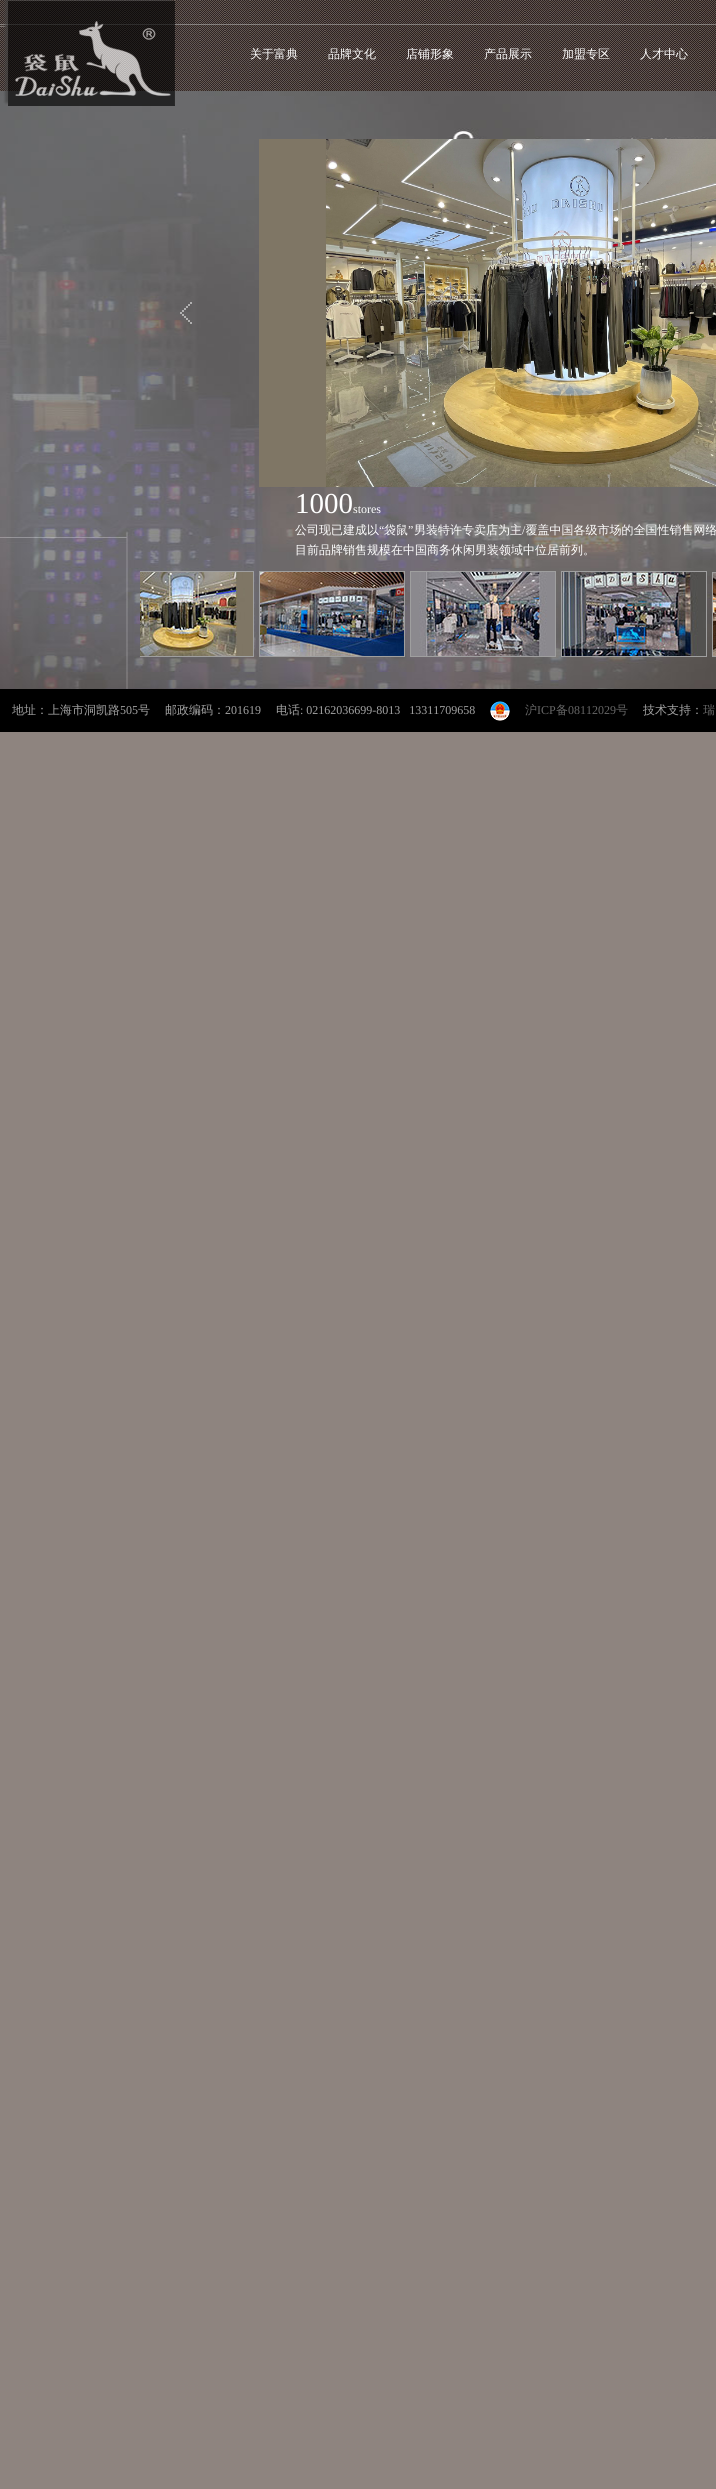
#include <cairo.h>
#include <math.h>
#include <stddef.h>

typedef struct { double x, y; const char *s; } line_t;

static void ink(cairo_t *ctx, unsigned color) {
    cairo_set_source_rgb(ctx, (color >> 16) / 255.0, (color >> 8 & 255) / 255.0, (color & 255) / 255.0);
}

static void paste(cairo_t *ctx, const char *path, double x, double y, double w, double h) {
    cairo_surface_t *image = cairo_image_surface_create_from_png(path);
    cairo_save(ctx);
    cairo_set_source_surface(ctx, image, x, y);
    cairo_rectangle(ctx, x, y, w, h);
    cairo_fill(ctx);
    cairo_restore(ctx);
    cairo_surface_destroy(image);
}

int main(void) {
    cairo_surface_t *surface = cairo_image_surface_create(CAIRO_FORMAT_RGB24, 716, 2489);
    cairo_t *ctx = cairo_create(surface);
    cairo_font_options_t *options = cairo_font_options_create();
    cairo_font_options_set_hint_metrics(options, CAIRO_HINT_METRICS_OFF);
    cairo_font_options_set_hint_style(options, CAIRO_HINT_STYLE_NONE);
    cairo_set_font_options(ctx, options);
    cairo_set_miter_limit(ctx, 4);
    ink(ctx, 0x8E847F);
    cairo_paint(ctx);
    paste(ctx, "media/1.png", 0, 0, 716, 689);
    paste(ctx, "media/2.png", 0, 0, 716, 91);
    paste(ctx, "media/3.png", 0, 0, 175, 106);
    cairo_select_font_face(ctx, "WenQuanYi Zen Hei Medium", CAIRO_FONT_SLANT_NORMAL, CAIRO_FONT_WEIGHT_NORMAL);
    cairo_set_font_size(ctx, 12);
    ink(ctx, 0xFFFFFF);
    {
        static const line_t items[] = {
            {250, 58, "关于富典"},
            {328, 58, "品牌文化"},
            {406, 58, "店铺形象"},
            {484, 58, "产品展示"},
            {562, 58, "加盟专区"},
            {640, 58, "人才中心"},
        };
        for (size_t i = 0; i < sizeof items / sizeof *items; i++) {
            cairo_move_to(ctx, items[i].x, items[i].y);
            cairo_show_text(ctx, items[i].s);
        }
    }
    paste(ctx, "media/4.png", 180, 302, 12, 22);
    paste(ctx, "media/5.png", 259, 139, 457, 348);
    cairo_select_font_face(ctx, "Liberation Serif", CAIRO_FONT_SLANT_NORMAL, CAIRO_FONT_WEIGHT_NORMAL);
    cairo_set_font_size(ctx, 29);
    cairo_move_to(ctx, 295, 513);
    cairo_show_text(ctx, "1000");
    cairo_set_font_size(ctx, 12);
    cairo_move_to(ctx, 353, 513);
    cairo_show_text(ctx, "stores");
    cairo_select_font_face(ctx, "WenQuanYi Zen Hei Medium", CAIRO_FONT_SLANT_NORMAL, CAIRO_FONT_WEIGHT_NORMAL);
    cairo_move_to(ctx, 295, 534);
    cairo_show_text(ctx, "公司现已建成以");
    cairo_select_font_face(ctx, "Liberation Serif", CAIRO_FONT_SLANT_NORMAL, CAIRO_FONT_WEIGHT_NORMAL);
    cairo_move_to(ctx, 379, 534);
    cairo_show_text(ctx, "“");
    cairo_select_font_face(ctx, "WenQuanYi Zen Hei Medium", CAIRO_FONT_SLANT_NORMAL, CAIRO_FONT_WEIGHT_NORMAL);
    cairo_move_to(ctx, 384, 534);
    cairo_show_text(ctx, "袋鼠");
    cairo_select_font_face(ctx, "Liberation Serif", CAIRO_FONT_SLANT_NORMAL, CAIRO_FONT_WEIGHT_NORMAL);
    cairo_move_to(ctx, 408, 534);
    cairo_show_text(ctx, "”");
    cairo_select_font_face(ctx, "WenQuanYi Zen Hei Medium", CAIRO_FONT_SLANT_NORMAL, CAIRO_FONT_WEIGHT_NORMAL);
    cairo_move_to(ctx, 414, 534);
    cairo_show_text(ctx, "男装特许专卖店为主 覆盖中国各级市场的全国性销售网络");
    cairo_select_font_face(ctx, "Liberation Serif", CAIRO_FONT_SLANT_NORMAL, CAIRO_FONT_WEIGHT_NORMAL);
    cairo_move_to(ctx, 522, 534);
    cairo_show_text(ctx, "/");
    cairo_select_font_face(ctx, "WenQuanYi Zen Hei Medium", CAIRO_FONT_SLANT_NORMAL, CAIRO_FONT_WEIGHT_NORMAL);
    cairo_move_to(ctx, 295, 554);
    cairo_show_text(ctx, "目前品牌销售规模在中国商务休闲男装领域中位居前列。");
    cairo_save(ctx);
    cairo_rectangle(ctx, 140, 570, 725, 105);
    cairo_clip(ctx);
    cairo_rectangle(ctx, 108.5, 571.5, 145, 85);
    ink(ctx, 0x9F9F9F);
    cairo_set_line_width(ctx, 1);
    cairo_stroke(ctx);
    cairo_restore(ctx);
    paste(ctx, "media/6.png", 140, 572, 113, 84);
    cairo_rectangle(ctx, 259.5, 571.5, 145, 85);
    ink(ctx, 0x9F9F9F);
    cairo_set_line_width(ctx, 1);
    cairo_stroke(ctx);
    paste(ctx, "media/7.png", 260, 572, 144, 84);
    cairo_rectangle(ctx, 410.5, 571.5, 145, 85);
    cairo_stroke(ctx);
    paste(ctx, "media/8.png", 411, 572, 144, 84);
    cairo_rectangle(ctx, 561.5, 571.5, 145, 85);
    cairo_stroke(ctx);
    paste(ctx, "media/9.png", 562, 572, 144, 84);
    cairo_rectangle(ctx, 712.5, 572.5, 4, 84);
    cairo_stroke(ctx);
    paste(ctx, "media/10.png", 713, 573, 3, 83);
    ink(ctx, 0x000000);
    cairo_rectangle(ctx, 0, 689, 716, 43);
    cairo_fill(ctx);
    ink(ctx, 0xA3A3A3);
    cairo_move_to(ctx, 12, 714);
    cairo_show_text(ctx, "地址：上海市洞凯路");
    cairo_select_font_face(ctx, "Liberation Serif", CAIRO_FONT_SLANT_NORMAL, CAIRO_FONT_WEIGHT_NORMAL);
    cairo_move_to(ctx, 120, 714);
    cairo_show_text(ctx, "505");
    cairo_select_font_face(ctx, "WenQuanYi Zen Hei Medium", CAIRO_FONT_SLANT_NORMAL, CAIRO_FONT_WEIGHT_NORMAL);
    cairo_move_to(ctx, 138, 714);
    cairo_show_text(ctx, "号");
    cairo_move_to(ctx, 165, 714);
    cairo_show_text(ctx, "邮政编码：");
    cairo_select_font_face(ctx, "Liberation Serif", CAIRO_FONT_SLANT_NORMAL, CAIRO_FONT_WEIGHT_NORMAL);
    cairo_move_to(ctx, 225, 714);
    cairo_show_text(ctx, "201619");
    cairo_select_font_face(ctx, "WenQuanYi Zen Hei Medium", CAIRO_FONT_SLANT_NORMAL, CAIRO_FONT_WEIGHT_NORMAL);
    cairo_move_to(ctx, 276, 714);
    cairo_show_text(ctx, "电话");
    cairo_select_font_face(ctx, "Liberation Serif", CAIRO_FONT_SLANT_NORMAL, CAIRO_FONT_WEIGHT_NORMAL);
    cairo_move_to(ctx, 300, 714);
    cairo_show_text(ctx, ": 02162036699-8013   13311709658");
    paste(ctx, "media/11.png", 490, 701, 20, 20);
    cairo_select_font_face(ctx, "WenQuanYi Zen Hei Medium", CAIRO_FONT_SLANT_NORMAL, CAIRO_FONT_WEIGHT_NORMAL);
    ink(ctx, 0x666666);
    cairo_move_to(ctx, 525, 714);
    cairo_show_text(ctx, "沪");
    cairo_select_font_face(ctx, "Liberation Serif", CAIRO_FONT_SLANT_NORMAL, CAIRO_FONT_WEIGHT_NORMAL);
    cairo_move_to(ctx, 537, 714);
    cairo_show_text(ctx, "ICP");
    cairo_select_font_face(ctx, "WenQuanYi Zen Hei Medium", CAIRO_FONT_SLANT_NORMAL, CAIRO_FONT_WEIGHT_NORMAL);
    cairo_move_to(ctx, 556, 714);
    cairo_show_text(ctx, "备");
    cairo_select_font_face(ctx, "Liberation Serif", CAIRO_FONT_SLANT_NORMAL, CAIRO_FONT_WEIGHT_NORMAL);
    cairo_move_to(ctx, 568, 714);
    cairo_show_text(ctx, "08112029");
    cairo_select_font_face(ctx, "WenQuanYi Zen Hei Medium", CAIRO_FONT_SLANT_NORMAL, CAIRO_FONT_WEIGHT_NORMAL);
    cairo_move_to(ctx, 616, 714);
    cairo_show_text(ctx, "号");
    ink(ctx, 0xA3A3A3);
    cairo_move_to(ctx, 643, 714);
    cairo_show_text(ctx, "技术支持：");
    ink(ctx, 0x666666);
    cairo_move_to(ctx, 703, 714);
    cairo_show_text(ctx, "瑞");
    cairo_surface_write_to_png(surface, "image.png");
    cairo_font_options_destroy(options);
    cairo_destroy(ctx);
    cairo_surface_destroy(surface);
    return 0;
}
